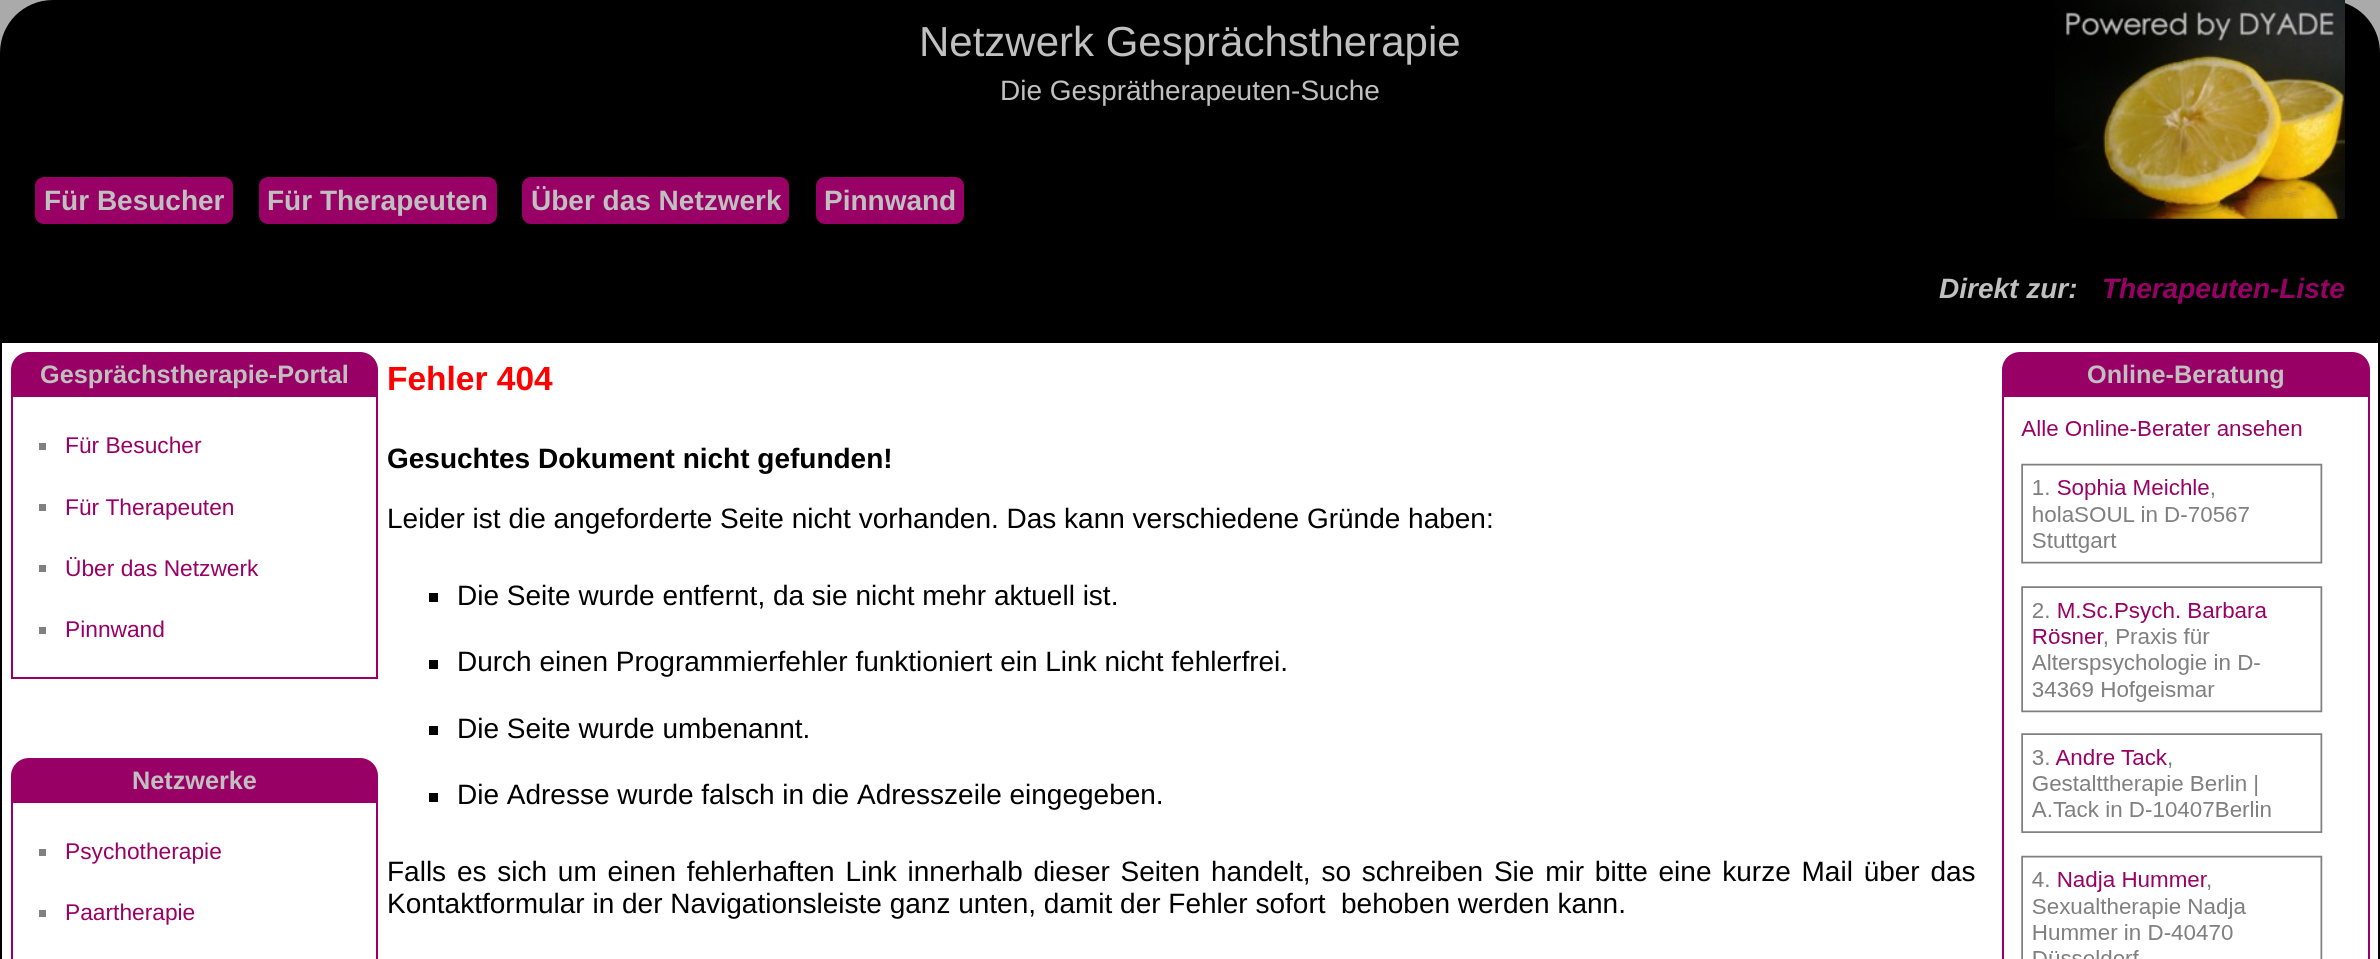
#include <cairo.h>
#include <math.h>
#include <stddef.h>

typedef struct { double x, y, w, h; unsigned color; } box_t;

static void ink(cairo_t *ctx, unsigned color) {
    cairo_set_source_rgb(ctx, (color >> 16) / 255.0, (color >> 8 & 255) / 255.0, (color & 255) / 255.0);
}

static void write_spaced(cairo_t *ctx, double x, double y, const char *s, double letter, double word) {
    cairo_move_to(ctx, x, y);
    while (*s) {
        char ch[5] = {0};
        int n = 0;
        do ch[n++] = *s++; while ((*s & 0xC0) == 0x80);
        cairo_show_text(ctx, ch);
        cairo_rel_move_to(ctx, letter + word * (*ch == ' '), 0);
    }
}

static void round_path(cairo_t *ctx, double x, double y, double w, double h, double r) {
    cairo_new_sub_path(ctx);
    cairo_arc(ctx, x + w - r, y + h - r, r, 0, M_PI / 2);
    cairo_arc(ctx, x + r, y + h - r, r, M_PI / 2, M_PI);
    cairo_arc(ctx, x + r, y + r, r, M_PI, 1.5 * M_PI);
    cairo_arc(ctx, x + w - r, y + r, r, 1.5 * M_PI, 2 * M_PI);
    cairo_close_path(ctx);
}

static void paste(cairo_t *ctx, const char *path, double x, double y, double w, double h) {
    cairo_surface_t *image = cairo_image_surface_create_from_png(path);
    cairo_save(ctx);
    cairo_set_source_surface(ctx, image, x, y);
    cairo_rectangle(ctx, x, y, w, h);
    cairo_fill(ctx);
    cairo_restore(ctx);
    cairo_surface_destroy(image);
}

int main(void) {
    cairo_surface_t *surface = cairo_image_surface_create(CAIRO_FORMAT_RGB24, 2380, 959);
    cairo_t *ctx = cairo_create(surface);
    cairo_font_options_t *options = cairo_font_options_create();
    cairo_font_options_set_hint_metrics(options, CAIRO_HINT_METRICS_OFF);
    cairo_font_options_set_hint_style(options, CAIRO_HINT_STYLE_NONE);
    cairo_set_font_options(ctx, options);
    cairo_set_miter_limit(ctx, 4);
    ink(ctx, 0xAAAAAA);
    cairo_paint(ctx);
    ink(ctx, 0x000000);
    cairo_new_path(ctx);
    cairo_move_to(ctx, 53, 0);
    cairo_line_to(ctx, 2327, 0);
    cairo_curve_to(ctx, 2356.5, 0, 2380, 23.5, 2380, 53);
    cairo_line_to(ctx, 2380, 343);
    cairo_line_to(ctx, 0, 343);
    cairo_line_to(ctx, 0, 53);
    cairo_curve_to(ctx, 0, 23.5, 23.5, 0, 53, 0);
    cairo_close_path(ctx);
    cairo_fill(ctx);
    cairo_select_font_face(ctx, "Liberation Sans", CAIRO_FONT_SLANT_NORMAL, CAIRO_FONT_WEIGHT_NORMAL);
    cairo_set_font_size(ctx, 42);
    ink(ctx, 0xC0C0C0);
    cairo_move_to(ctx, 919, 56);
    cairo_show_text(ctx, "Netzwerk Gesprächstherapie");
    paste(ctx, "media/1.png", 2055, 0, 290, 219);
    cairo_set_font_size(ctx, 28);
    cairo_move_to(ctx, 1000, 100);
    cairo_show_text(ctx, "Die Gesprätherapeuten-Suche");
    ink(ctx, 0x990066);
    round_path(ctx, 35, 177, 198, 47, 9);
    cairo_fill(ctx);
    cairo_select_font_face(ctx, "Liberation Sans", CAIRO_FONT_SLANT_NORMAL, CAIRO_FONT_WEIGHT_BOLD);
    ink(ctx, 0xC0C0C0);
    cairo_move_to(ctx, 44, 210);
    cairo_show_text(ctx, "Für Besucher");
    ink(ctx, 0x990066);
    round_path(ctx, 259, 177, 238, 47, 9);
    cairo_fill(ctx);
    ink(ctx, 0xC0C0C0);
    cairo_move_to(ctx, 267, 210);
    cairo_show_text(ctx, "Für Therapeuten");
    ink(ctx, 0x990066);
    round_path(ctx, 522, 177, 267, 47, 9);
    cairo_fill(ctx);
    ink(ctx, 0xC0C0C0);
    cairo_move_to(ctx, 531, 210);
    cairo_show_text(ctx, "Über das Netzwerk");
    ink(ctx, 0x990066);
    round_path(ctx, 816, 177, 148, 47, 9);
    cairo_fill(ctx);
    ink(ctx, 0xC0C0C0);
    cairo_move_to(ctx, 824, 210);
    cairo_show_text(ctx, "Pinnwand");
    cairo_select_font_face(ctx, "Liberation Sans", CAIRO_FONT_SLANT_ITALIC, CAIRO_FONT_WEIGHT_BOLD);
    cairo_move_to(ctx, 1939, 298);
    cairo_show_text(ctx, "Direkt zur:");
    ink(ctx, 0x990066);
    cairo_move_to(ctx, 2102, 298);
    cairo_show_text(ctx, "Therapeuten-Liste");
    ink(ctx, 0xFFFFFF);
    cairo_rectangle(ctx, 2, 343, 2376, 616);
    cairo_fill(ctx);
    ink(ctx, 0x000000);
    cairo_rectangle(ctx, 0, 343, 2, 616);
    cairo_fill(ctx);
    ink(ctx, 0x990066);
    cairo_new_path(ctx);
    cairo_move_to(ctx, 29, 352);
    cairo_line_to(ctx, 360, 352);
    cairo_curve_to(ctx, 370, 352, 378, 360, 378, 370);
    cairo_line_to(ctx, 378, 397);
    cairo_line_to(ctx, 11, 397);
    cairo_line_to(ctx, 11, 370);
    cairo_curve_to(ctx, 11, 360, 19, 352, 29, 352);
    cairo_close_path(ctx);
    cairo_fill(ctx);
    cairo_select_font_face(ctx, "Liberation Sans", CAIRO_FONT_SLANT_NORMAL, CAIRO_FONT_WEIGHT_BOLD);
    cairo_set_font_size(ctx, 25.25);
    ink(ctx, 0xC0C0C0);
    cairo_move_to(ctx, 40, 383);
    cairo_show_text(ctx, "Gesprächstherapie-Portal");
    {
        static const box_t items[] = {
            {376, 397, 2, 282, 0x990066},
            {11, 677, 367, 2, 0x990066},
            {11, 397, 2, 282, 0x990066},
            {39, 443, 7, 7, 0x808080},
        };
        for (size_t i = 0; i < sizeof items / sizeof *items; i++) {
            ink(ctx, items[i].color);
            cairo_rectangle(ctx, items[i].x, items[i].y, items[i].w, items[i].h);
            cairo_fill(ctx);
        }
    }
    cairo_select_font_face(ctx, "Liberation Sans", CAIRO_FONT_SLANT_NORMAL, CAIRO_FONT_WEIGHT_NORMAL);
    cairo_set_font_size(ctx, 22.75);
    ink(ctx, 0x990066);
    cairo_move_to(ctx, 65, 453);
    cairo_show_text(ctx, "Für Besucher");
    ink(ctx, 0x808080);
    cairo_rectangle(ctx, 39, 504, 7, 7);
    cairo_fill(ctx);
    ink(ctx, 0x990066);
    cairo_move_to(ctx, 65, 515);
    cairo_show_text(ctx, "Für Therapeuten");
    ink(ctx, 0x808080);
    cairo_rectangle(ctx, 39, 565, 7, 7);
    cairo_fill(ctx);
    ink(ctx, 0x990066);
    cairo_move_to(ctx, 65, 576);
    cairo_show_text(ctx, "Über das Netzwerk");
    ink(ctx, 0x808080);
    cairo_rectangle(ctx, 39, 627, 7, 7);
    cairo_fill(ctx);
    ink(ctx, 0x990066);
    cairo_move_to(ctx, 65, 637);
    cairo_show_text(ctx, "Pinnwand");
    cairo_new_path(ctx);
    cairo_move_to(ctx, 29, 758);
    cairo_line_to(ctx, 360, 758);
    cairo_curve_to(ctx, 370, 758, 378, 766, 378, 776);
    cairo_line_to(ctx, 378, 803);
    cairo_line_to(ctx, 11, 803);
    cairo_line_to(ctx, 11, 776);
    cairo_curve_to(ctx, 11, 766, 19, 758, 29, 758);
    cairo_close_path(ctx);
    cairo_fill(ctx);
    cairo_select_font_face(ctx, "Liberation Sans", CAIRO_FONT_SLANT_NORMAL, CAIRO_FONT_WEIGHT_BOLD);
    cairo_set_font_size(ctx, 25.25);
    ink(ctx, 0xC0C0C0);
    cairo_move_to(ctx, 132, 789);
    cairo_show_text(ctx, "Netzwerke");
    {
        static const box_t items[] = {
            {376, 803, 2, 156, 0x990066},
            {11, 803, 2, 156, 0x990066},
            {39, 849, 7, 7, 0x808080},
        };
        for (size_t i = 0; i < sizeof items / sizeof *items; i++) {
            ink(ctx, items[i].color);
            cairo_rectangle(ctx, items[i].x, items[i].y, items[i].w, items[i].h);
            cairo_fill(ctx);
        }
    }
    cairo_select_font_face(ctx, "Liberation Sans", CAIRO_FONT_SLANT_NORMAL, CAIRO_FONT_WEIGHT_NORMAL);
    cairo_set_font_size(ctx, 22.75);
    ink(ctx, 0x990066);
    cairo_move_to(ctx, 65, 859);
    cairo_show_text(ctx, "Psychotherapie");
    ink(ctx, 0x808080);
    cairo_rectangle(ctx, 39, 910, 7, 7);
    cairo_fill(ctx);
    ink(ctx, 0x990066);
    cairo_move_to(ctx, 65, 920);
    cairo_show_text(ctx, "Paartherapie");
    cairo_select_font_face(ctx, "Liberation Sans", CAIRO_FONT_SLANT_NORMAL, CAIRO_FONT_WEIGHT_BOLD);
    cairo_set_font_size(ctx, 33.5);
    ink(ctx, 0xFF0000);
    cairo_move_to(ctx, 387, 390);
    cairo_show_text(ctx, "Fehler 404");
    cairo_set_font_size(ctx, 28);
    ink(ctx, 0x000000);
    cairo_move_to(ctx, 387, 468);
    cairo_show_text(ctx, "Gesuchtes Dokument nicht gefunden!");
    cairo_select_font_face(ctx, "Liberation Sans", CAIRO_FONT_SLANT_NORMAL, CAIRO_FONT_WEIGHT_NORMAL);
    cairo_move_to(ctx, 387, 528);
    cairo_show_text(ctx, "Leider ist die angeforderte Seite nicht vorhanden. Das kann verschiedene Gründe haben:");
    cairo_rectangle(ctx, 429, 593, 9, 9);
    cairo_fill(ctx);
    cairo_move_to(ctx, 457, 605);
    cairo_show_text(ctx, "Die Seite wurde entfernt, da sie nicht mehr aktuell ist.");
    cairo_rectangle(ctx, 429, 660, 9, 9);
    cairo_fill(ctx);
    cairo_move_to(ctx, 457, 671);
    cairo_show_text(ctx, "Durch einen Programmierfehler funktioniert ein Link nicht fehlerfrei.");
    cairo_rectangle(ctx, 429, 726, 9, 9);
    cairo_fill(ctx);
    cairo_move_to(ctx, 457, 738);
    cairo_show_text(ctx, "Die Seite wurde umbenannt.");
    cairo_rectangle(ctx, 429, 793, 9, 9);
    cairo_fill(ctx);
    cairo_move_to(ctx, 457, 804);
    cairo_show_text(ctx, "Die Adresse wurde falsch in die Adresszeile eingegeben.");
    write_spaced(ctx, 387, 881, "Falls es sich um einen fehlerhaften Link innerhalb dieser Seiten", 0, 3);
    write_spaced(ctx, 1211, 881, "handelt, so schreiben Sie mir bitte eine kurze Mail über das", 0, 3);
    cairo_move_to(ctx, 387, 913);
    cairo_show_text(ctx, "Kontaktformular in der Navigationsleiste ganz unten, damit der Fehler sofort  behoben werden kann.");
    cairo_rectangle(ctx, 2378, 343, 2, 616);
    cairo_fill(ctx);
    ink(ctx, 0x990066);
    cairo_new_path(ctx);
    cairo_move_to(ctx, 2020, 352);
    cairo_line_to(ctx, 2352, 352);
    cairo_curve_to(ctx, 2362, 352, 2370, 360, 2370, 370);
    cairo_line_to(ctx, 2370, 397);
    cairo_line_to(ctx, 2002, 397);
    cairo_line_to(ctx, 2002, 370);
    cairo_curve_to(ctx, 2002, 360, 2010, 352, 2020, 352);
    cairo_close_path(ctx);
    cairo_fill(ctx);
    cairo_select_font_face(ctx, "Liberation Sans", CAIRO_FONT_SLANT_NORMAL, CAIRO_FONT_WEIGHT_BOLD);
    cairo_set_font_size(ctx, 25.25);
    ink(ctx, 0xC0C0C0);
    cairo_move_to(ctx, 2087, 383);
    cairo_show_text(ctx, "Online-Beratung");
    ink(ctx, 0x990066);
    cairo_rectangle(ctx, 2002, 397, 2, 562);
    cairo_fill(ctx);
    paste(ctx, "media/2.png", 2021, 420, 302, 539);
    cairo_rectangle(ctx, 2368, 397, 2, 562);
    cairo_fill(ctx);
    cairo_surface_write_to_png(surface, "image.png");
    cairo_font_options_destroy(options);
    cairo_destroy(ctx);
    cairo_surface_destroy(surface);
    return 0;
}
